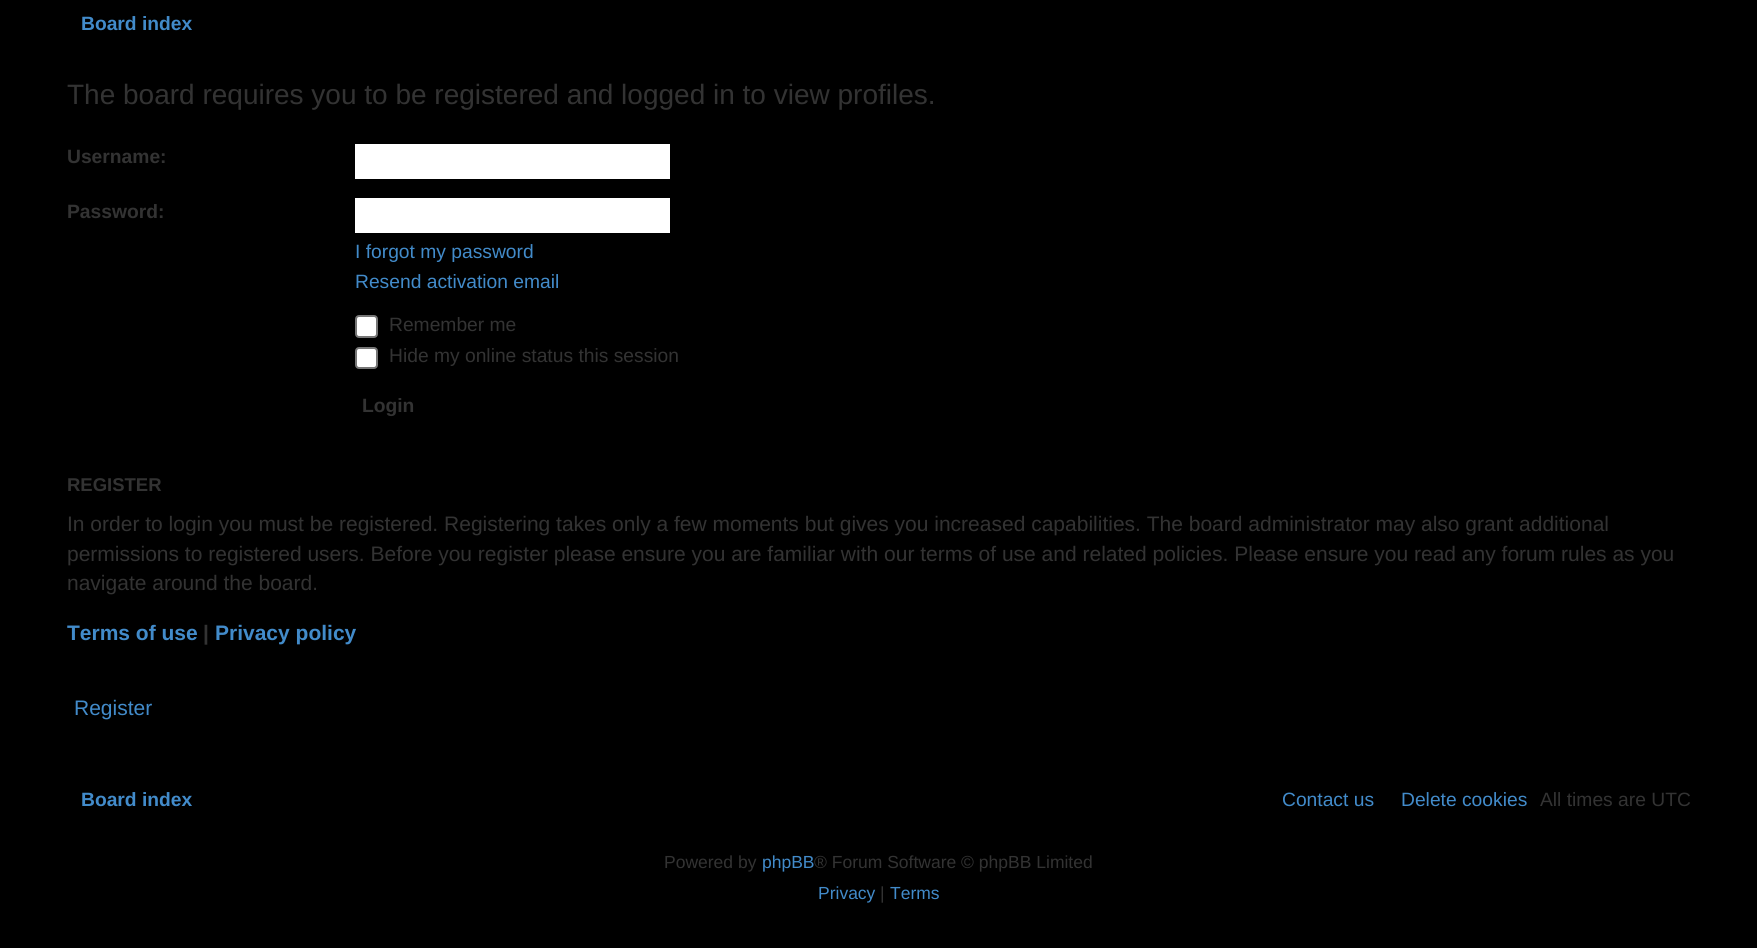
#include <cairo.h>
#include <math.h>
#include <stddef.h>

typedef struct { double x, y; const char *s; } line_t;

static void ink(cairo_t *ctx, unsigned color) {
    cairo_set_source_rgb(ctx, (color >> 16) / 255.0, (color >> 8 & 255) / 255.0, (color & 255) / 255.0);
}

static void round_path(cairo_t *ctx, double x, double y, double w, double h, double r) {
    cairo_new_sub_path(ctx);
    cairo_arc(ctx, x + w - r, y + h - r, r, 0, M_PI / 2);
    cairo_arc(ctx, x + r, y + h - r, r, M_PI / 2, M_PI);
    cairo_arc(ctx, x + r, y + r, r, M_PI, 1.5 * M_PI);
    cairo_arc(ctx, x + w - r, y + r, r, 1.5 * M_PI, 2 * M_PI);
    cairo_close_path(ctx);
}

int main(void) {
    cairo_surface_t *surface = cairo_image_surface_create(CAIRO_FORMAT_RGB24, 1757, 948);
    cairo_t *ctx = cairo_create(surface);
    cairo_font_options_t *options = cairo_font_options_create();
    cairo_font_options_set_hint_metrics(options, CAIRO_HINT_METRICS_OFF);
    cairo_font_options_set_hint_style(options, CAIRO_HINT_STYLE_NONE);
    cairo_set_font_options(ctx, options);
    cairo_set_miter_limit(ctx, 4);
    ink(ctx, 0x000000);
    cairo_paint(ctx);
    cairo_select_font_face(ctx, "Liberation Sans", CAIRO_FONT_SLANT_NORMAL, CAIRO_FONT_WEIGHT_BOLD);
    cairo_set_font_size(ctx, 19.25);
    ink(ctx, 0x428BCA);
    cairo_move_to(ctx, 81, 30);
    cairo_show_text(ctx, "Board index");
    cairo_select_font_face(ctx, "Liberation Sans", CAIRO_FONT_SLANT_NORMAL, CAIRO_FONT_WEIGHT_NORMAL);
    cairo_set_font_size(ctx, 28);
    ink(ctx, 0x333333);
    cairo_move_to(ctx, 67, 104);
    cairo_show_text(ctx, "The board requires you to be registered and logged in to view profiles.");
    cairo_select_font_face(ctx, "Liberation Sans", CAIRO_FONT_SLANT_NORMAL, CAIRO_FONT_WEIGHT_BOLD);
    cairo_set_font_size(ctx, 19.25);
    cairo_move_to(ctx, 67, 163);
    cairo_show_text(ctx, "Username:");
    ink(ctx, 0xFFFFFF);
    cairo_rectangle(ctx, 355, 144, 315, 35);
    cairo_fill(ctx);
    ink(ctx, 0x333333);
    cairo_move_to(ctx, 67, 218);
    cairo_show_text(ctx, "Password:");
    ink(ctx, 0xFFFFFF);
    cairo_rectangle(ctx, 355, 198, 315, 35);
    cairo_fill(ctx);
    cairo_select_font_face(ctx, "Liberation Sans", CAIRO_FONT_SLANT_NORMAL, CAIRO_FONT_WEIGHT_NORMAL);
    ink(ctx, 0x428BCA);
    cairo_move_to(ctx, 355, 258);
    cairo_show_text(ctx, "I forgot my password");
    cairo_move_to(ctx, 355, 288);
    cairo_show_text(ctx, "Resend activation email");
    ink(ctx, 0xFFFFFF);
    round_path(ctx, 356, 316, 21, 21, 3);
    cairo_fill_preserve(ctx);
    ink(ctx, 0x767676);
    cairo_stroke(ctx);
    ink(ctx, 0x333333);
    cairo_move_to(ctx, 389, 331);
    cairo_show_text(ctx, "Remember me");
    ink(ctx, 0xFFFFFF);
    round_path(ctx, 356, 348, 21, 20, 3);
    cairo_fill_preserve(ctx);
    ink(ctx, 0x767676);
    cairo_stroke(ctx);
    ink(ctx, 0x333333);
    cairo_move_to(ctx, 389, 362);
    cairo_show_text(ctx, "Hide my online status this session");
    cairo_select_font_face(ctx, "Liberation Sans", CAIRO_FONT_SLANT_NORMAL, CAIRO_FONT_WEIGHT_BOLD);
    cairo_move_to(ctx, 362, 412);
    cairo_show_text(ctx, "Login");
    cairo_set_font_size(ctx, 18.5);
    cairo_move_to(ctx, 67, 491);
    cairo_show_text(ctx, "REGISTER");
    cairo_select_font_face(ctx, "Liberation Sans", CAIRO_FONT_SLANT_NORMAL, CAIRO_FONT_WEIGHT_NORMAL);
    cairo_set_font_size(ctx, 21);
    {
        static const line_t items[] = {
            {67, 531, "In order to login you must be registered. Registering takes only a few moments but gives you increased capabilities. The board administrator may also grant additional"},
            {67, 561, "permissions to registered users. Before you register please ensure you are familiar with our terms of use and related policies. Please ensure you read any forum rules as you"},
            {67, 590, "navigate around the board."},
        };
        for (size_t i = 0; i < sizeof items / sizeof *items; i++) {
            cairo_move_to(ctx, items[i].x, items[i].y);
            cairo_show_text(ctx, items[i].s);
        }
    }
    cairo_save(ctx);
    cairo_rectangle(ctx, 67, 462, 1624, 291);
    cairo_clip(ctx);
    cairo_select_font_face(ctx, "Liberation Sans", CAIRO_FONT_SLANT_NORMAL, CAIRO_FONT_WEIGHT_BOLD);
    ink(ctx, 0x428BCA);
    cairo_move_to(ctx, 67, 640);
    cairo_show_text(ctx, "Terms of use");
    cairo_restore(ctx);
    cairo_select_font_face(ctx, "Liberation Sans", CAIRO_FONT_SLANT_NORMAL, CAIRO_FONT_WEIGHT_BOLD);
    cairo_move_to(ctx, 203, 640);
    cairo_show_text(ctx, "|");
    ink(ctx, 0x428BCA);
    cairo_move_to(ctx, 215, 640);
    cairo_show_text(ctx, "Privacy policy");
    cairo_select_font_face(ctx, "Liberation Sans", CAIRO_FONT_SLANT_NORMAL, CAIRO_FONT_WEIGHT_NORMAL);
    cairo_move_to(ctx, 74, 715);
    cairo_show_text(ctx, "Register");
    cairo_select_font_face(ctx, "Liberation Sans", CAIRO_FONT_SLANT_NORMAL, CAIRO_FONT_WEIGHT_BOLD);
    cairo_set_font_size(ctx, 19.25);
    cairo_move_to(ctx, 81, 806);
    cairo_show_text(ctx, "Board index");
    cairo_select_font_face(ctx, "Liberation Sans", CAIRO_FONT_SLANT_NORMAL, CAIRO_FONT_WEIGHT_NORMAL);
    cairo_move_to(ctx, 1282, 806);
    cairo_show_text(ctx, "Contact us");
    cairo_move_to(ctx, 1401, 806);
    cairo_show_text(ctx, "Delete cookies");
    ink(ctx, 0x333333);
    cairo_move_to(ctx, 1540, 806);
    cairo_show_text(ctx, "All times are UTC");
    cairo_set_font_size(ctx, 17.5);
    cairo_move_to(ctx, 664, 868);
    cairo_show_text(ctx, "Powered by");
    ink(ctx, 0x428BCA);
    cairo_move_to(ctx, 762, 868);
    cairo_show_text(ctx, "phpBB");
    ink(ctx, 0x333333);
    cairo_move_to(ctx, 814, 868);
    cairo_show_text(ctx, "® Forum Software © phpBB Limited");
    ink(ctx, 0x428BCA);
    cairo_move_to(ctx, 818, 899);
    cairo_show_text(ctx, "Privacy");
    ink(ctx, 0x333333);
    cairo_move_to(ctx, 880, 899);
    cairo_show_text(ctx, "|");
    ink(ctx, 0x428BCA);
    cairo_move_to(ctx, 890, 899);
    cairo_show_text(ctx, "Terms");
    cairo_surface_write_to_png(surface, "image.png");
    cairo_font_options_destroy(options);
    cairo_destroy(ctx);
    cairo_surface_destroy(surface);
    return 0;
}
